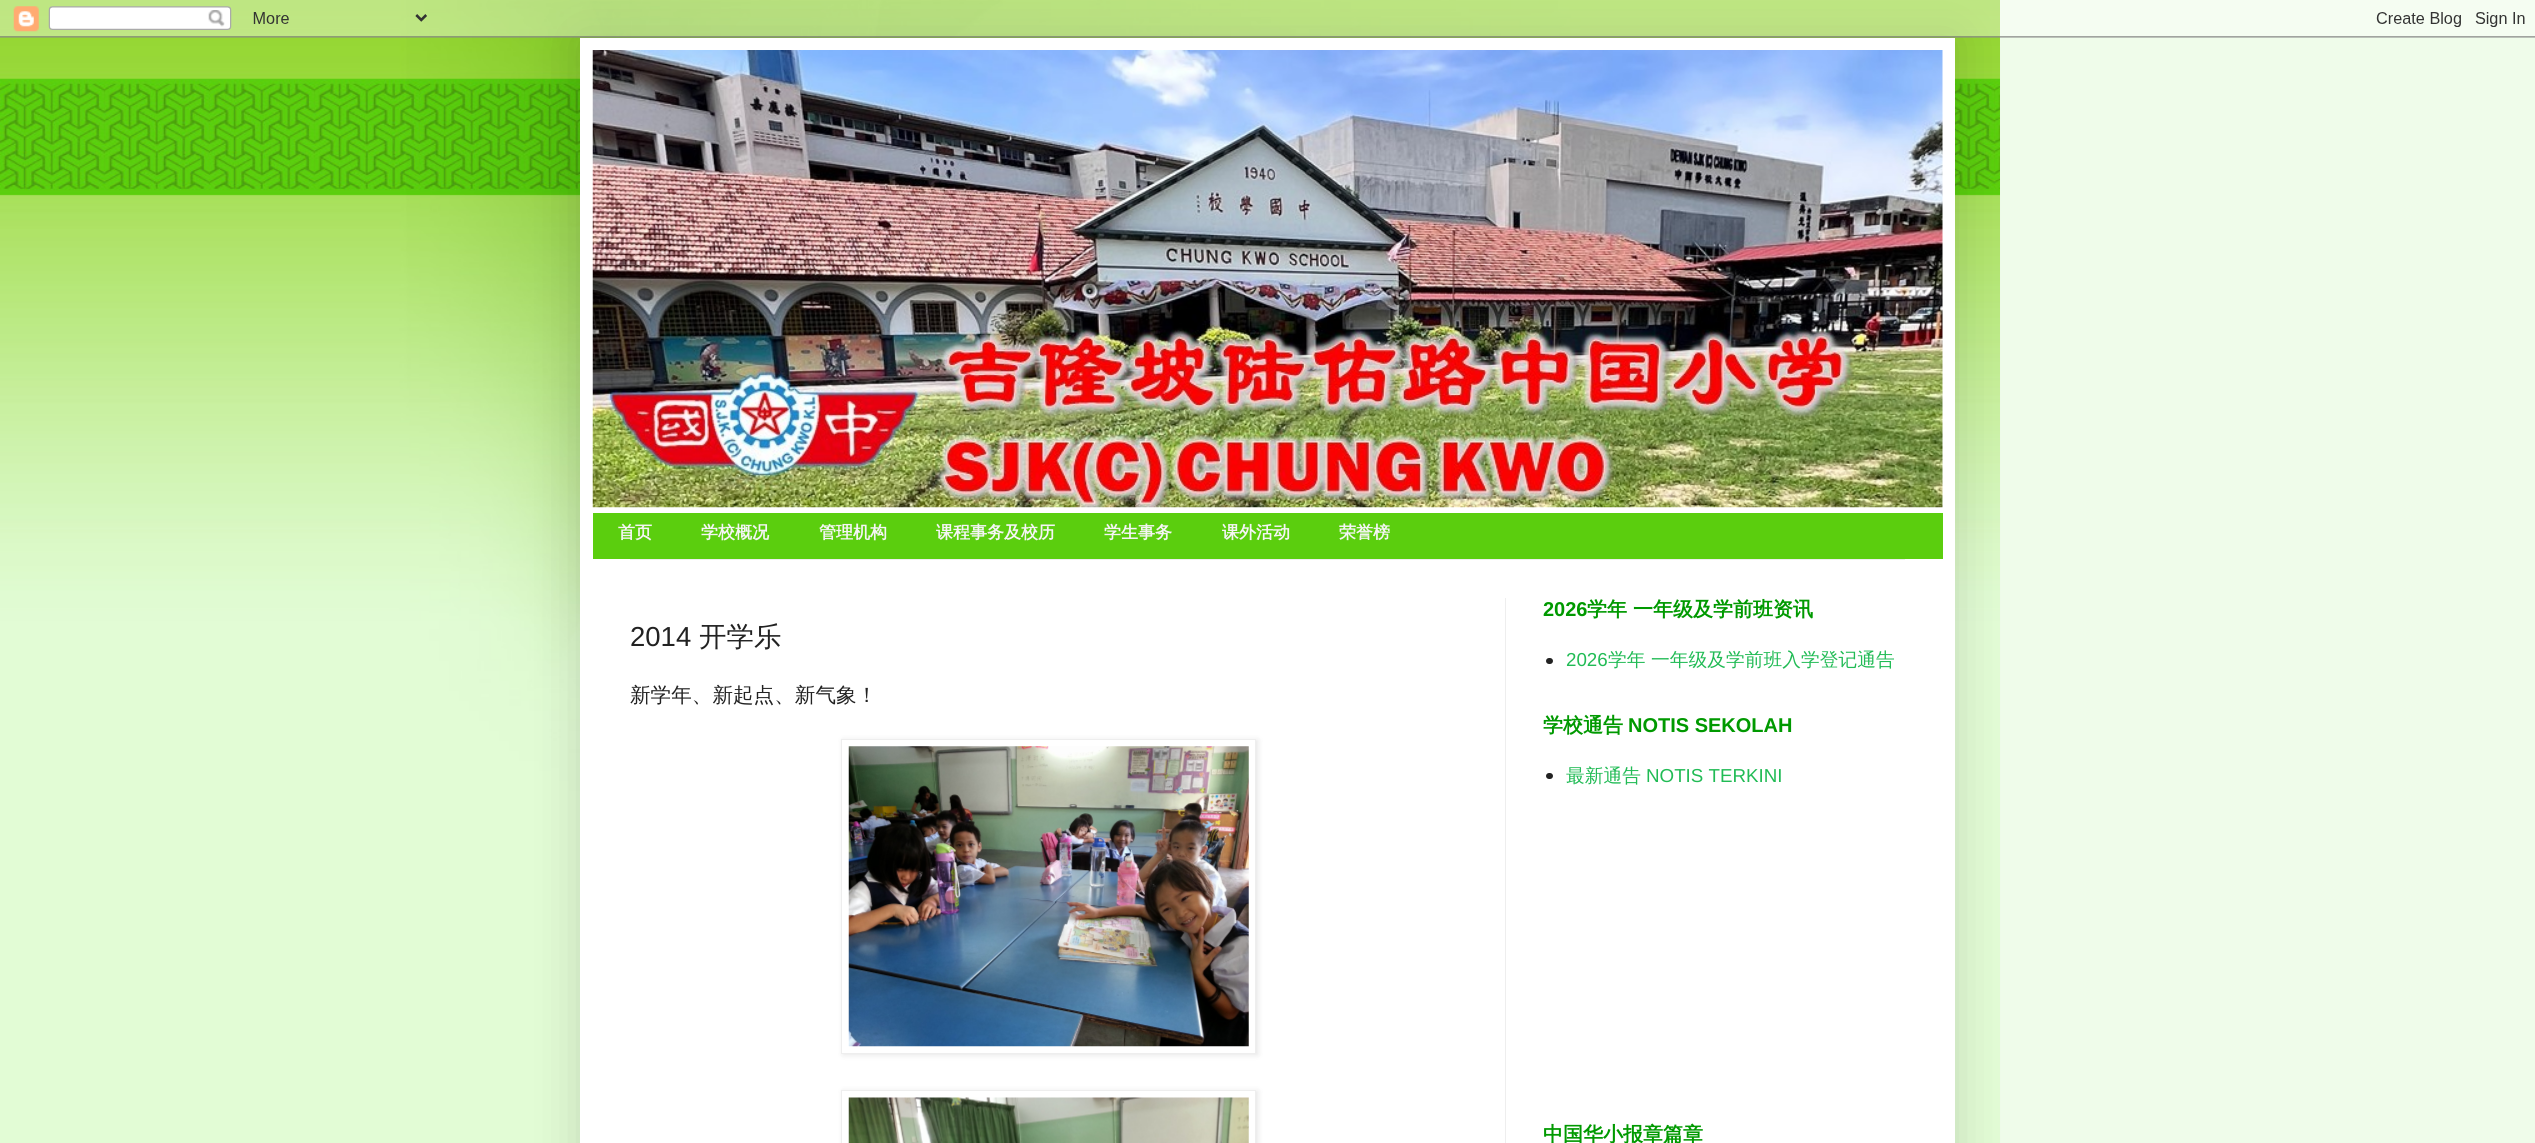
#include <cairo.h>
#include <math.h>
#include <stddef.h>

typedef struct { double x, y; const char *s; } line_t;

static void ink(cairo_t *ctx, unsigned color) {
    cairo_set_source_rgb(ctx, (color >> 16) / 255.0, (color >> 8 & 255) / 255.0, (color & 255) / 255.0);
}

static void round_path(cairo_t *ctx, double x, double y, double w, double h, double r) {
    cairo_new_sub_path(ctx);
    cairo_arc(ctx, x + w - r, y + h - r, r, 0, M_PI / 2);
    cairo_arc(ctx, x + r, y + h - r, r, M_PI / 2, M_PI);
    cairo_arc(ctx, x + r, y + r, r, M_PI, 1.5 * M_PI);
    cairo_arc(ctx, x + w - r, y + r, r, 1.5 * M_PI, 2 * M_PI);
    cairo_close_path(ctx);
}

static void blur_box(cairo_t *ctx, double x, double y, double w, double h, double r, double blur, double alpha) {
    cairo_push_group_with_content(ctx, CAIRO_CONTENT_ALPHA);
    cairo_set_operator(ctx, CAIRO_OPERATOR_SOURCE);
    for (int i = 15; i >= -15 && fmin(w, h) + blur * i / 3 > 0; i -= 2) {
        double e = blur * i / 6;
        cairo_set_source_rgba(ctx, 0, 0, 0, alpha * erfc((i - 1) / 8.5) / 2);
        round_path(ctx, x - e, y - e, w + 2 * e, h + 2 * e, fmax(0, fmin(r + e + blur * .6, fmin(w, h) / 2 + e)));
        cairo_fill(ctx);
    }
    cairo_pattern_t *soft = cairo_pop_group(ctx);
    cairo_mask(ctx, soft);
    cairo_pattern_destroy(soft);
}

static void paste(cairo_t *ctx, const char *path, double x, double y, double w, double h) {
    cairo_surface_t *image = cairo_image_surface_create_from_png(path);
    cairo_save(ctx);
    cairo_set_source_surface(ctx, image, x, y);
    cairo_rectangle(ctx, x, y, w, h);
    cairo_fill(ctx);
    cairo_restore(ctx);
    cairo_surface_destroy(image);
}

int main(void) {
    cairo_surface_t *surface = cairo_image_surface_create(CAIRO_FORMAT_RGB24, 2535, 1143);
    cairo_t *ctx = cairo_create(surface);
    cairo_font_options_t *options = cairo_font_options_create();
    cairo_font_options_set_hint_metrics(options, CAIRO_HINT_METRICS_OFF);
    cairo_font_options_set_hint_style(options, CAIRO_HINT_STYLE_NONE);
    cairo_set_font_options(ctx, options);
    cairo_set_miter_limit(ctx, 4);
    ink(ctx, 0xEFFCEA);
    cairo_paint(ctx);
    paste(ctx, "media/1.png", 0, 500, 2000, 643);
    paste(ctx, "media/2.png", 0, 0, 2000, 500);
    ink(ctx, 0x000000);
    blur_box(ctx, 580, 38, 1375, 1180, 0, 25, 0.15);
    paste(ctx, "media/3.png", 0, 0, 2535, 38);
    ink(ctx, 0xFFFFFF);
    cairo_rectangle(ctx, 580, 38, 1375, 1105);
    cairo_fill(ctx);
    paste(ctx, "media/4.png", 592, 50, 1351, 458);
    ink(ctx, 0x5BCE0E);
    cairo_rectangle(ctx, 593, 513, 1350, 46);
    cairo_fill(ctx);
    cairo_select_font_face(ctx, "WenQuanYi Zen Hei", CAIRO_FONT_SLANT_NORMAL, CAIRO_FONT_WEIGHT_BOLD);
    cairo_set_font_size(ctx, 17);
    ink(ctx, 0xF5F5F5);
    {
        static const line_t items[] = {
            {618, 538, "首页"},
            {701, 538, "学校概况"},
            {819, 538, "管理机构"},
            {936, 538, "课程事务及校历"},
            {1104, 538, "学生事务"},
            {1222, 538, "课外活动"},
            {1339, 538, "荣誉榜"},
        };
        for (size_t i = 0; i < sizeof items / sizeof *items; i++) {
            cairo_move_to(ctx, items[i].x, items[i].y);
            cairo_show_text(ctx, items[i].s);
        }
    }
    ink(ctx, 0xEEEEEE);
    cairo_rectangle(ctx, 630, 559, 1275, 1);
    cairo_fill(ctx);
    cairo_rectangle(ctx, 1505, 598, 1, 545);
    cairo_fill(ctx);
    cairo_select_font_face(ctx, "Liberation Sans", CAIRO_FONT_SLANT_NORMAL, CAIRO_FONT_WEIGHT_NORMAL);
    cairo_set_font_size(ctx, 27.5);
    ink(ctx, 0x222222);
    cairo_move_to(ctx, 630, 646);
    cairo_show_text(ctx, "2014");
    cairo_select_font_face(ctx, "WenQuanYi Zen Hei Medium", CAIRO_FONT_SLANT_NORMAL, CAIRO_FONT_WEIGHT_NORMAL);
    cairo_move_to(ctx, 699, 646);
    cairo_show_text(ctx, "开学乐");
    cairo_set_font_size(ctx, 20.6);
    cairo_move_to(ctx, 630, 702);
    cairo_show_text(ctx, "新学年、新起点、新气象！");
    ink(ctx, 0x000000);
    blur_box(ctx, 843, 740, 415, 315, 0, 3, 0.1);
    ink(ctx, 0xFFFFFF);
    cairo_rectangle(ctx, 841.5, 739.5, 414, 314);
    cairo_fill_preserve(ctx);
    ink(ctx, 0xEEEEEE);
    cairo_set_line_width(ctx, 1);
    cairo_stroke(ctx);
    paste(ctx, "media/5.png", 848, 746, 401, 301);
    ink(ctx, 0x000000);
    blur_box(ctx, 843, 1091, 415, 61, 0, 3, 0.1);
    ink(ctx, 0xFFFFFF);
    cairo_rectangle(ctx, 841.5, 1090.5, 414, 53);
    cairo_fill_preserve(ctx);
    ink(ctx, 0xEEEEEE);
    cairo_stroke(ctx);
    paste(ctx, "media/6.png", 848, 1097, 401, 46);
    cairo_select_font_face(ctx, "Liberation Sans", CAIRO_FONT_SLANT_NORMAL, CAIRO_FONT_WEIGHT_BOLD);
    cairo_set_font_size(ctx, 20);
    ink(ctx, 0x009900);
    cairo_move_to(ctx, 1543, 616);
    cairo_show_text(ctx, "2026");
    cairo_select_font_face(ctx, "WenQuanYi Zen Hei", CAIRO_FONT_SLANT_NORMAL, CAIRO_FONT_WEIGHT_BOLD);
    cairo_move_to(ctx, 1587, 616);
    cairo_show_text(ctx, "学年 一年级及学前班资讯");
    ink(ctx, 0x222222);
    round_path(ctx, 1546, 658, 7, 6, 3);
    cairo_fill(ctx);
    cairo_select_font_face(ctx, "Liberation Sans", CAIRO_FONT_SLANT_NORMAL, CAIRO_FONT_WEIGHT_NORMAL);
    cairo_set_font_size(ctx, 18.75);
    ink(ctx, 0x21BB55);
    cairo_move_to(ctx, 1566, 666);
    cairo_show_text(ctx, "2026");
    cairo_select_font_face(ctx, "WenQuanYi Zen Hei Medium", CAIRO_FONT_SLANT_NORMAL, CAIRO_FONT_WEIGHT_NORMAL);
    cairo_move_to(ctx, 1608, 666);
    cairo_show_text(ctx, "学年 一年级及学前班入学登记通告");
    cairo_select_font_face(ctx, "WenQuanYi Zen Hei", CAIRO_FONT_SLANT_NORMAL, CAIRO_FONT_WEIGHT_BOLD);
    cairo_set_font_size(ctx, 20);
    ink(ctx, 0x009900);
    cairo_move_to(ctx, 1543, 732);
    cairo_show_text(ctx, "学校通告");
    cairo_select_font_face(ctx, "Liberation Sans", CAIRO_FONT_SLANT_NORMAL, CAIRO_FONT_WEIGHT_BOLD);
    cairo_move_to(ctx, 1628, 732);
    cairo_show_text(ctx, "NOTIS SEKOLAH");
    ink(ctx, 0x222222);
    round_path(ctx, 1546, 773, 7, 6, 3);
    cairo_fill(ctx);
    cairo_select_font_face(ctx, "WenQuanYi Zen Hei Medium", CAIRO_FONT_SLANT_NORMAL, CAIRO_FONT_WEIGHT_NORMAL);
    cairo_set_font_size(ctx, 18.75);
    ink(ctx, 0x21BB55);
    cairo_move_to(ctx, 1566, 782);
    cairo_show_text(ctx, "最新通告");
    cairo_select_font_face(ctx, "Liberation Sans", CAIRO_FONT_SLANT_NORMAL, CAIRO_FONT_WEIGHT_NORMAL);
    cairo_move_to(ctx, 1646, 782);
    cairo_show_text(ctx, "NOTIS TERKINI");
    cairo_select_font_face(ctx, "WenQuanYi Zen Hei", CAIRO_FONT_SLANT_NORMAL, CAIRO_FONT_WEIGHT_BOLD);
    cairo_set_font_size(ctx, 20);
    ink(ctx, 0x009900);
    cairo_move_to(ctx, 1543, 1141);
    cairo_show_text(ctx, "中国华小报章篇章");
    cairo_surface_write_to_png(surface, "image.png");
    cairo_font_options_destroy(options);
    cairo_destroy(ctx);
    cairo_surface_destroy(surface);
    return 0;
}
